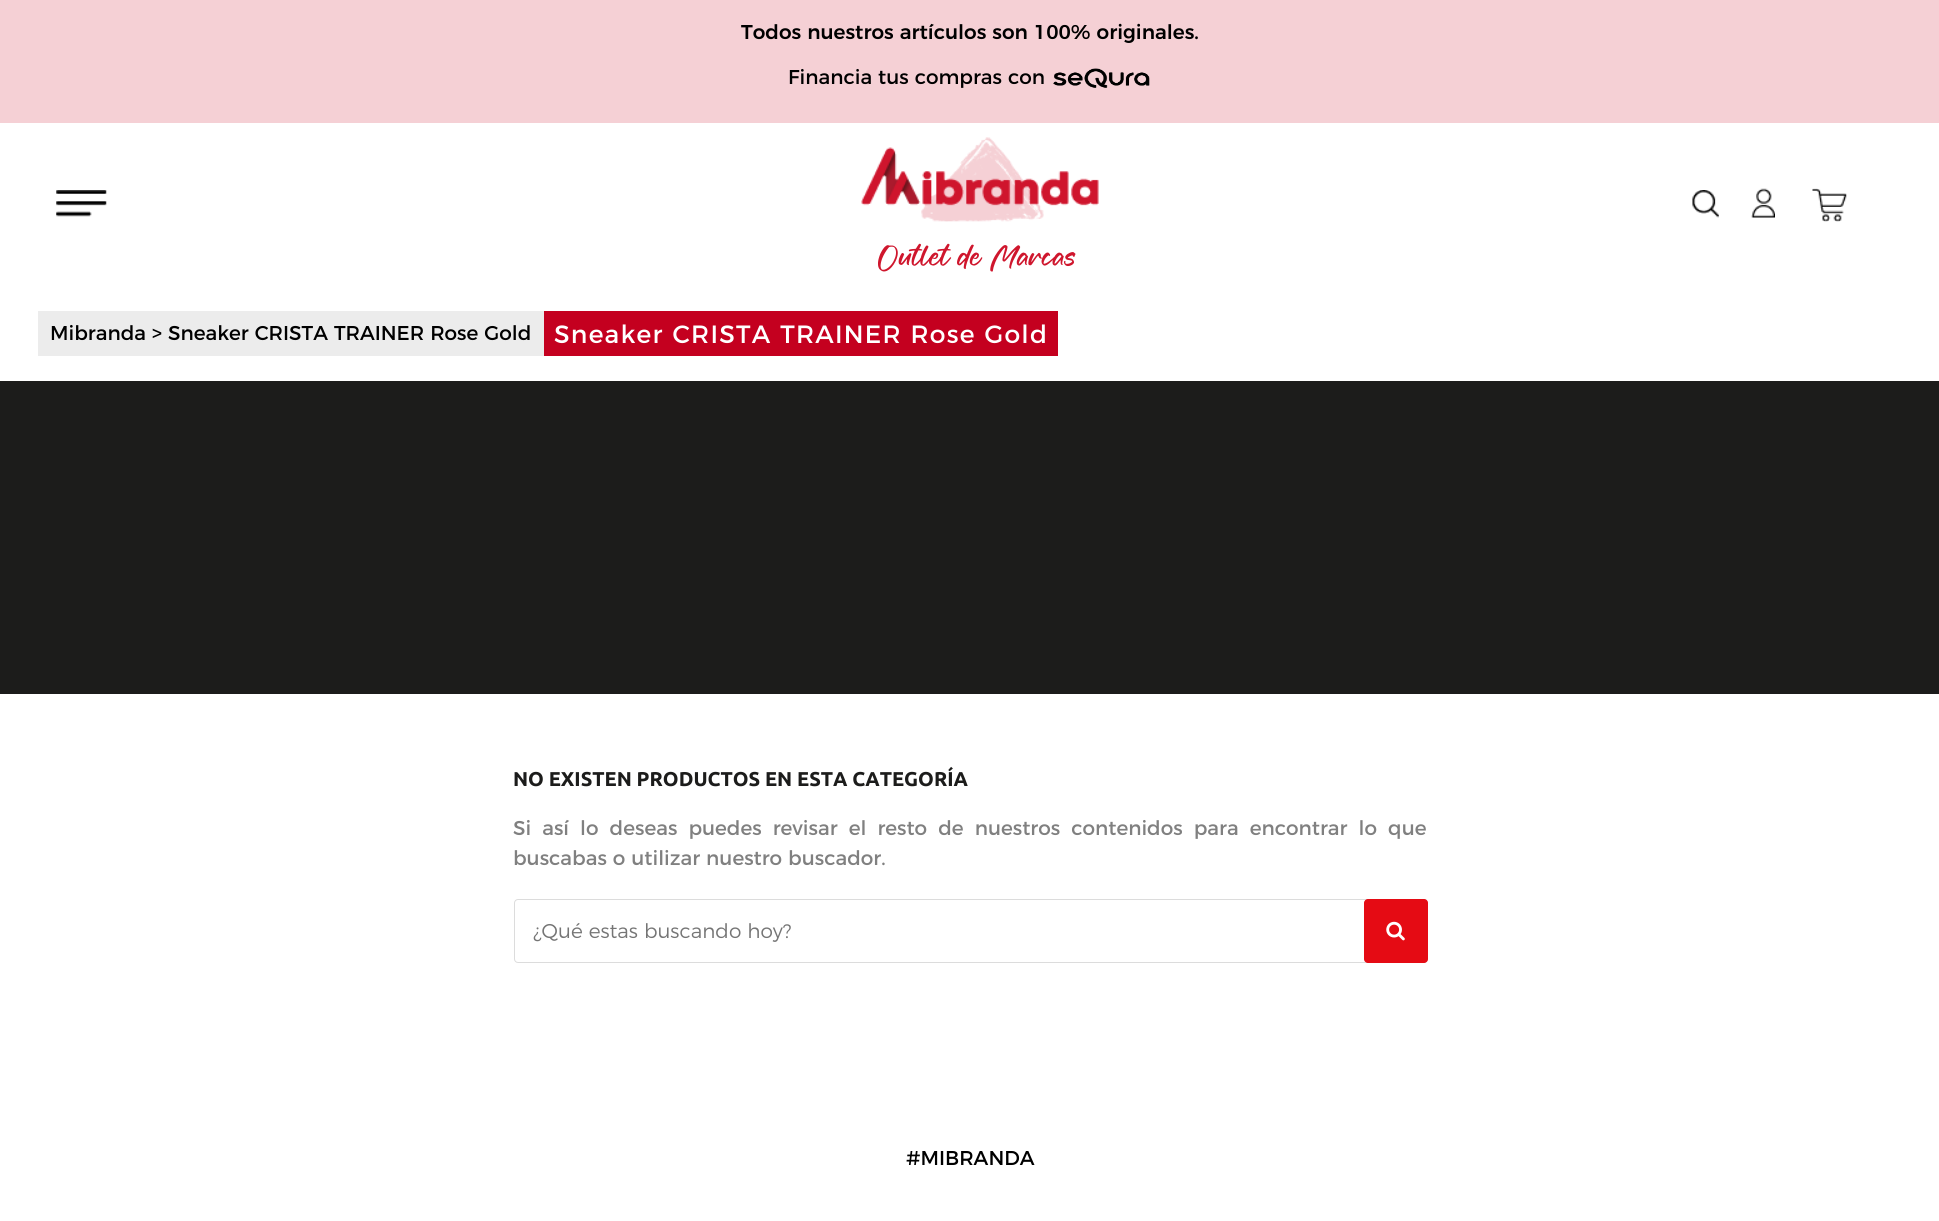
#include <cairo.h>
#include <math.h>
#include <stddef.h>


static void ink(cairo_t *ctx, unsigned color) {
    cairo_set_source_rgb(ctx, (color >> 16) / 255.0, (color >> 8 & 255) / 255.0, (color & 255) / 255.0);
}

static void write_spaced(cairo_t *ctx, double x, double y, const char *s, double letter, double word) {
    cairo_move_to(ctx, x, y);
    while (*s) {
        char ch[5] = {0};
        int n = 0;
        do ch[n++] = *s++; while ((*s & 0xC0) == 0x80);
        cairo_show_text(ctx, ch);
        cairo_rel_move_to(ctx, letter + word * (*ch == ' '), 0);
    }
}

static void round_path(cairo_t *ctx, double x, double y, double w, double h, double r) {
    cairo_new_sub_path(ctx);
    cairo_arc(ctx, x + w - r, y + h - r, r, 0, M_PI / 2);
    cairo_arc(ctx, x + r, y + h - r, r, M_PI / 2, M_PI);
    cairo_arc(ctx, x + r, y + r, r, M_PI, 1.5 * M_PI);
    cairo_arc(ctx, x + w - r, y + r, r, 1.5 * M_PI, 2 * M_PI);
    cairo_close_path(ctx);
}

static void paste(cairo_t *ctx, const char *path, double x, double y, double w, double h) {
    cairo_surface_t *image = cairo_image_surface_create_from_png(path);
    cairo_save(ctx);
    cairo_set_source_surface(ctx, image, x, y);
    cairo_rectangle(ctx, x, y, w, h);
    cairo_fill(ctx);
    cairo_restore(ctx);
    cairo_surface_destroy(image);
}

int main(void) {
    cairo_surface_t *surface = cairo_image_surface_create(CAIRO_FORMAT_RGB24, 1939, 1221);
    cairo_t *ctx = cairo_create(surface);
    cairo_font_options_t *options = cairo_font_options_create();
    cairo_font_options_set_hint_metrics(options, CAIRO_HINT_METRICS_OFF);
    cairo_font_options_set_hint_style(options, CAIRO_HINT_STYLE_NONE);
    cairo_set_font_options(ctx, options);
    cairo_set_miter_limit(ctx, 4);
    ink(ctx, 0xFFFFFF);
    cairo_paint(ctx);
    ink(ctx, 0xF5D0D5);
    cairo_rectangle(ctx, 0, 0, 1939, 123);
    cairo_fill(ctx);
    cairo_select_font_face(ctx, "Montserrat Medium", CAIRO_FONT_SLANT_NORMAL, CAIRO_FONT_WEIGHT_NORMAL);
    cairo_set_font_size(ctx, 20);
    ink(ctx, 0x000000);
    cairo_move_to(ctx, 741, 39);
    cairo_show_text(ctx, "Todos nuestros artículos son 100% originales.");
    cairo_select_font_face(ctx, "Montserrat", CAIRO_FONT_SLANT_NORMAL, CAIRO_FONT_WEIGHT_NORMAL);
    cairo_move_to(ctx, 788, 84);
    cairo_show_text(ctx, "Financia tus compras con");
    paste(ctx, "media/1.png", 1053, 68, 97, 20);
    paste(ctx, "media/2.png", 56, 190, 51, 27);
    paste(ctx, "media/3.png", 1692, 190, 27, 28);
    paste(ctx, "media/4.png", 1751, 188, 24, 30);
    paste(ctx, "media/5.png", 1812, 188, 35, 34);
    paste(ctx, "media/6.png", 861, 137, 238, 85);
    cairo_select_font_face(ctx, "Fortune", CAIRO_FONT_SLANT_NORMAL, CAIRO_FONT_WEIGHT_NORMAL);
    cairo_set_font_size(ctx, 43.75);
    ink(ctx, 0xCF162D);
    cairo_move_to(ctx, 878, 273);
    cairo_show_text(ctx, "Outlet de Marcas");
    ink(ctx, 0xECECEC);
    cairo_rectangle(ctx, 38, 311, 506, 45);
    cairo_fill(ctx);
    cairo_select_font_face(ctx, "Montserrat", CAIRO_FONT_SLANT_NORMAL, CAIRO_FONT_WEIGHT_NORMAL);
    cairo_set_font_size(ctx, 20);
    ink(ctx, 0x000000);
    cairo_move_to(ctx, 50, 340);
    cairo_show_text(ctx, "Mibranda > Sneaker CRISTA TRAINER Rose Gold");
    ink(ctx, 0xC4001F);
    cairo_rectangle(ctx, 544, 311, 514, 45);
    cairo_fill(ctx);
    cairo_set_font_size(ctx, 25);
    ink(ctx, 0xFFFFFF);
    write_spaced(ctx, 554, 343, "Sneaker CRISTA TRAINER Rose Gold", 1.25, 0);
    ink(ctx, 0x1C1C1B);
    cairo_rectangle(ctx, 0, 381, 1939, 313);
    cairo_fill(ctx);
    cairo_select_font_face(ctx, "Ubuntu", CAIRO_FONT_SLANT_NORMAL, CAIRO_FONT_WEIGHT_BOLD);
    cairo_set_font_size(ctx, 20);
    cairo_move_to(ctx, 513, 786);
    cairo_show_text(ctx, "NO EXISTEN PRODUCTOS EN ESTA CATEGORÍA");
    cairo_select_font_face(ctx, "Montserrat", CAIRO_FONT_SLANT_NORMAL, CAIRO_FONT_WEIGHT_NORMAL);
    ink(ctx, 0x808080);
    write_spaced(ctx, 513, 835, "Si así lo deseas puedes revisar el resto de nuestros contenidos para encontrar lo que", 0, 5.1);
    cairo_move_to(ctx, 513, 865);
    cairo_show_text(ctx, "buscabas o utilizar nuestro buscador.");
    round_path(ctx, 514.5, 899.5, 913, 63, 3.5);
    ink(ctx, 0xDCDCDC);
    cairo_set_line_width(ctx, 1);
    cairo_stroke(ctx);
    cairo_select_font_face(ctx, "Montserrat Light", CAIRO_FONT_SLANT_NORMAL, CAIRO_FONT_WEIGHT_NORMAL);
    ink(ctx, 0x757575);
    cairo_move_to(ctx, 533, 938);
    cairo_show_text(ctx, "¿Qué estas buscando hoy?");
    ink(ctx, 0xE50B14);
    round_path(ctx, 1364, 899, 64, 64, 4);
    cairo_fill(ctx);
    paste(ctx, "media/7.png", 1386, 921, 19, 20);
    cairo_select_font_face(ctx, "Montserrat", CAIRO_FONT_SLANT_NORMAL, CAIRO_FONT_WEIGHT_NORMAL);
    ink(ctx, 0x000000);
    cairo_move_to(ctx, 906, 1165);
    cairo_show_text(ctx, "#MIBRANDA");
    cairo_surface_write_to_png(surface, "image.png");
    cairo_font_options_destroy(options);
    cairo_destroy(ctx);
    cairo_surface_destroy(surface);
    return 0;
}
